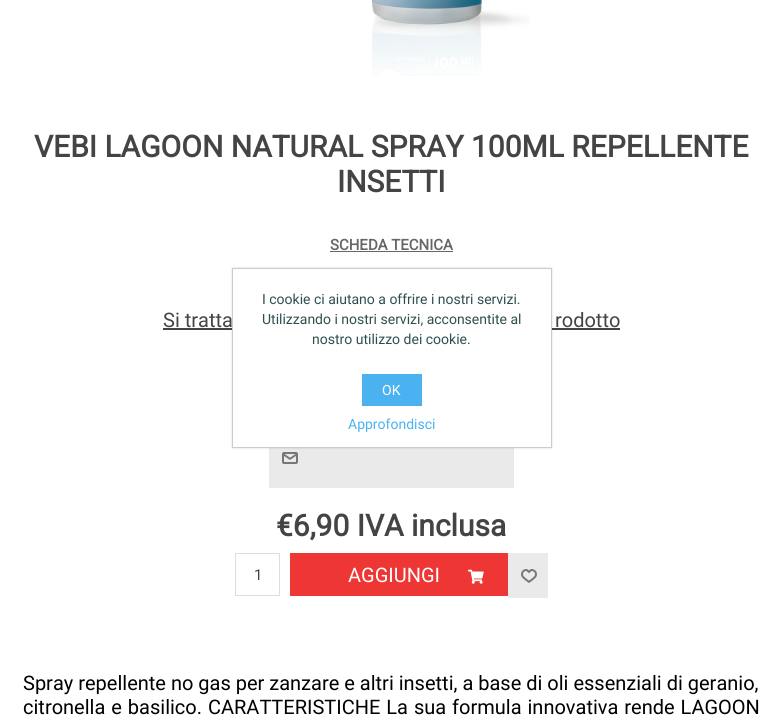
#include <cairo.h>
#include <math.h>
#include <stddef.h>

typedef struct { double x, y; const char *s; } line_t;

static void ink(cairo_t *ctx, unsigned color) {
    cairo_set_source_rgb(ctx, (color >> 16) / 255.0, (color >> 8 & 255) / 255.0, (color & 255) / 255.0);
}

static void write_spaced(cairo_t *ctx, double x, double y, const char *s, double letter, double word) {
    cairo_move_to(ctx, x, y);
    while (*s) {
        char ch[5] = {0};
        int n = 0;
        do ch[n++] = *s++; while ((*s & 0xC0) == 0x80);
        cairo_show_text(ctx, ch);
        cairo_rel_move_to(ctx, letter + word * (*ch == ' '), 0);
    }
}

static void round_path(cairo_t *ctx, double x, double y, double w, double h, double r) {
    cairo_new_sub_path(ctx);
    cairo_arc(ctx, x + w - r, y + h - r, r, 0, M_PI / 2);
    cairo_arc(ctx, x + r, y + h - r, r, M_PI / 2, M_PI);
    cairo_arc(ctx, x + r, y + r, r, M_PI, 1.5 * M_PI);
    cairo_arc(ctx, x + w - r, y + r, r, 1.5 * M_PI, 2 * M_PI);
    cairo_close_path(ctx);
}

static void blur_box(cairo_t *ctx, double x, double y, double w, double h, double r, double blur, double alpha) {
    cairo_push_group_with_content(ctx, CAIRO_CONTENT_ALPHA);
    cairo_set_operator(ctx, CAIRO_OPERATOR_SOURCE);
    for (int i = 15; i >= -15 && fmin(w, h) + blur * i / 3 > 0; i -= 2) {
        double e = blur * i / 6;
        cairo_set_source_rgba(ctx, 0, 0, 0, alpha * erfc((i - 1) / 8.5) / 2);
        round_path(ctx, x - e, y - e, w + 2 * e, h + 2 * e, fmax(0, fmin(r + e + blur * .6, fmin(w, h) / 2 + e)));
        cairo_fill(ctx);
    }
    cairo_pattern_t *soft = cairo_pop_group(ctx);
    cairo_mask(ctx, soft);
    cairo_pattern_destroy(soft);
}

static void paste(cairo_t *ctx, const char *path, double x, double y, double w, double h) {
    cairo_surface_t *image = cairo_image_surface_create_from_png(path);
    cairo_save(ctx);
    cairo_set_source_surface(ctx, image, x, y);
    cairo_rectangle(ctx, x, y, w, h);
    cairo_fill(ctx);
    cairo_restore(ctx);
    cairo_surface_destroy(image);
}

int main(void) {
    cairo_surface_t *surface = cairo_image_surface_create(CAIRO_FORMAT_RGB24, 783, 716);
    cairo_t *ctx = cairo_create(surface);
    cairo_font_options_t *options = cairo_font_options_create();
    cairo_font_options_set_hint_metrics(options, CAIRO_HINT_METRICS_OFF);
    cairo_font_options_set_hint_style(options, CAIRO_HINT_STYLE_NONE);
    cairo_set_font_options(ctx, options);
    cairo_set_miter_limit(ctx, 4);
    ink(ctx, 0xFFFFFF);
    cairo_paint(ctx);
    paste(ctx, "media/1.png", 372, 0, 158, 76);
    cairo_select_font_face(ctx, "Roboto", CAIRO_FONT_SLANT_NORMAL, CAIRO_FONT_WEIGHT_BOLD);
    cairo_set_font_size(ctx, 30);
    ink(ctx, 0x444444);
    cairo_move_to(ctx, 34, 157);
    cairo_show_text(ctx, "VEBI LAGOON NATURAL SPRAY 100ML REPELLENTE");
    cairo_move_to(ctx, 337, 192);
    cairo_show_text(ctx, "INSETTI");
    cairo_set_font_size(ctx, 15);
    ink(ctx, 0x666666);
    cairo_move_to(ctx, 330, 250);
    cairo_show_text(ctx, "SCHEDA TECNICA");
    cairo_rectangle(ctx, 330, 251, 123, 1);
    cairo_fill(ctx);
    cairo_select_font_face(ctx, "Roboto", CAIRO_FONT_SLANT_NORMAL, CAIRO_FONT_WEIGHT_NORMAL);
    cairo_set_font_size(ctx, 20);
    ink(ctx, 0x444444);
    cairo_move_to(ctx, 163, 327);
    cairo_show_text(ctx, "Si tratta");
    cairo_rectangle(ctx, 163, 328, 457, 2);
    cairo_fill(ctx);
    cairo_move_to(ctx, 555, 327);
    cairo_show_text(ctx, "rodotto");
    ink(ctx, 0xEAEAEA);
    cairo_rectangle(ctx, 269, 448, 245, 40);
    cairo_fill(ctx);
    paste(ctx, "media/2.png", 282, 452, 16, 12);
    cairo_select_font_face(ctx, "Roboto", CAIRO_FONT_SLANT_NORMAL, CAIRO_FONT_WEIGHT_BOLD);
    cairo_set_font_size(ctx, 30);
    ink(ctx, 0x444444);
    cairo_move_to(ctx, 276, 536);
    cairo_show_text(ctx, "€6,90 IVA inclusa");
    cairo_rectangle(ctx, 235.5, 553.5, 44, 42);
    ink(ctx, 0xDDDDDD);
    cairo_set_line_width(ctx, 1);
    cairo_stroke(ctx);
    cairo_select_font_face(ctx, "Roboto", CAIRO_FONT_SLANT_NORMAL, CAIRO_FONT_WEIGHT_NORMAL);
    cairo_set_font_size(ctx, 15);
    ink(ctx, 0x444444);
    cairo_move_to(ctx, 254, 580);
    cairo_show_text(ctx, "1");
    ink(ctx, 0xEE3634);
    cairo_rectangle(ctx, 290, 553, 218, 43);
    cairo_fill(ctx);
    cairo_set_font_size(ctx, 20);
    ink(ctx, 0xFFFFFF);
    cairo_move_to(ctx, 348, 582);
    cairo_show_text(ctx, "AGGIUNGI");
    paste(ctx, "media/3.png", 468, 569, 16, 15);
    ink(ctx, 0xEAEAEA);
    cairo_rectangle(ctx, 508, 553, 40, 45);
    cairo_fill(ctx);
    paste(ctx, "media/4.png", 521, 569, 16, 14);
    ink(ctx, 0x000000);
    cairo_move_to(ctx, 23, 690);
    cairo_show_text(ctx, "Spray repellente no gas per zanzare e altri insetti, a base di oli essenziali di geranio,");
    write_spaced(ctx, 23, 714, "citronella e basilico. CARATTERISTICHE La sua formula innovativa rende LAGOON", 0, 1);
    ink(ctx, 0x000000);
    blur_box(ctx, 232, 268, 320, 180, 0, 1, 0.15);
    ink(ctx, 0xFFFFFF);
    cairo_rectangle(ctx, 232.5, 268.5, 319, 179);
    cairo_fill_preserve(ctx);
    ink(ctx, 0xCCCCCC);
    cairo_stroke(ctx);
    cairo_set_font_size(ctx, 14);
    ink(ctx, 0x2F4F4F);
    {
        static const line_t items[] = {
            {262, 304, "I cookie ci aiutano a offrire i nostri servizi."},
            {262, 324, "Utilizzando i nostri servizi, acconsentite al"},
            {312, 344, "nostro utilizzo dei cookie."},
        };
        for (size_t i = 0; i < sizeof items / sizeof *items; i++) {
            cairo_move_to(ctx, items[i].x, items[i].y);
            cairo_show_text(ctx, items[i].s);
        }
    }
    ink(ctx, 0x4AB2F1);
    cairo_rectangle(ctx, 362, 374, 60, 32);
    cairo_fill(ctx);
    ink(ctx, 0xFFFFFF);
    cairo_move_to(ctx, 382, 395);
    cairo_show_text(ctx, "OK");
    ink(ctx, 0x4AB2F1);
    cairo_move_to(ctx, 348, 429);
    cairo_show_text(ctx, "Approfondisci");
    cairo_surface_write_to_png(surface, "image.png");
    cairo_font_options_destroy(options);
    cairo_destroy(ctx);
    cairo_surface_destroy(surface);
    return 0;
}
